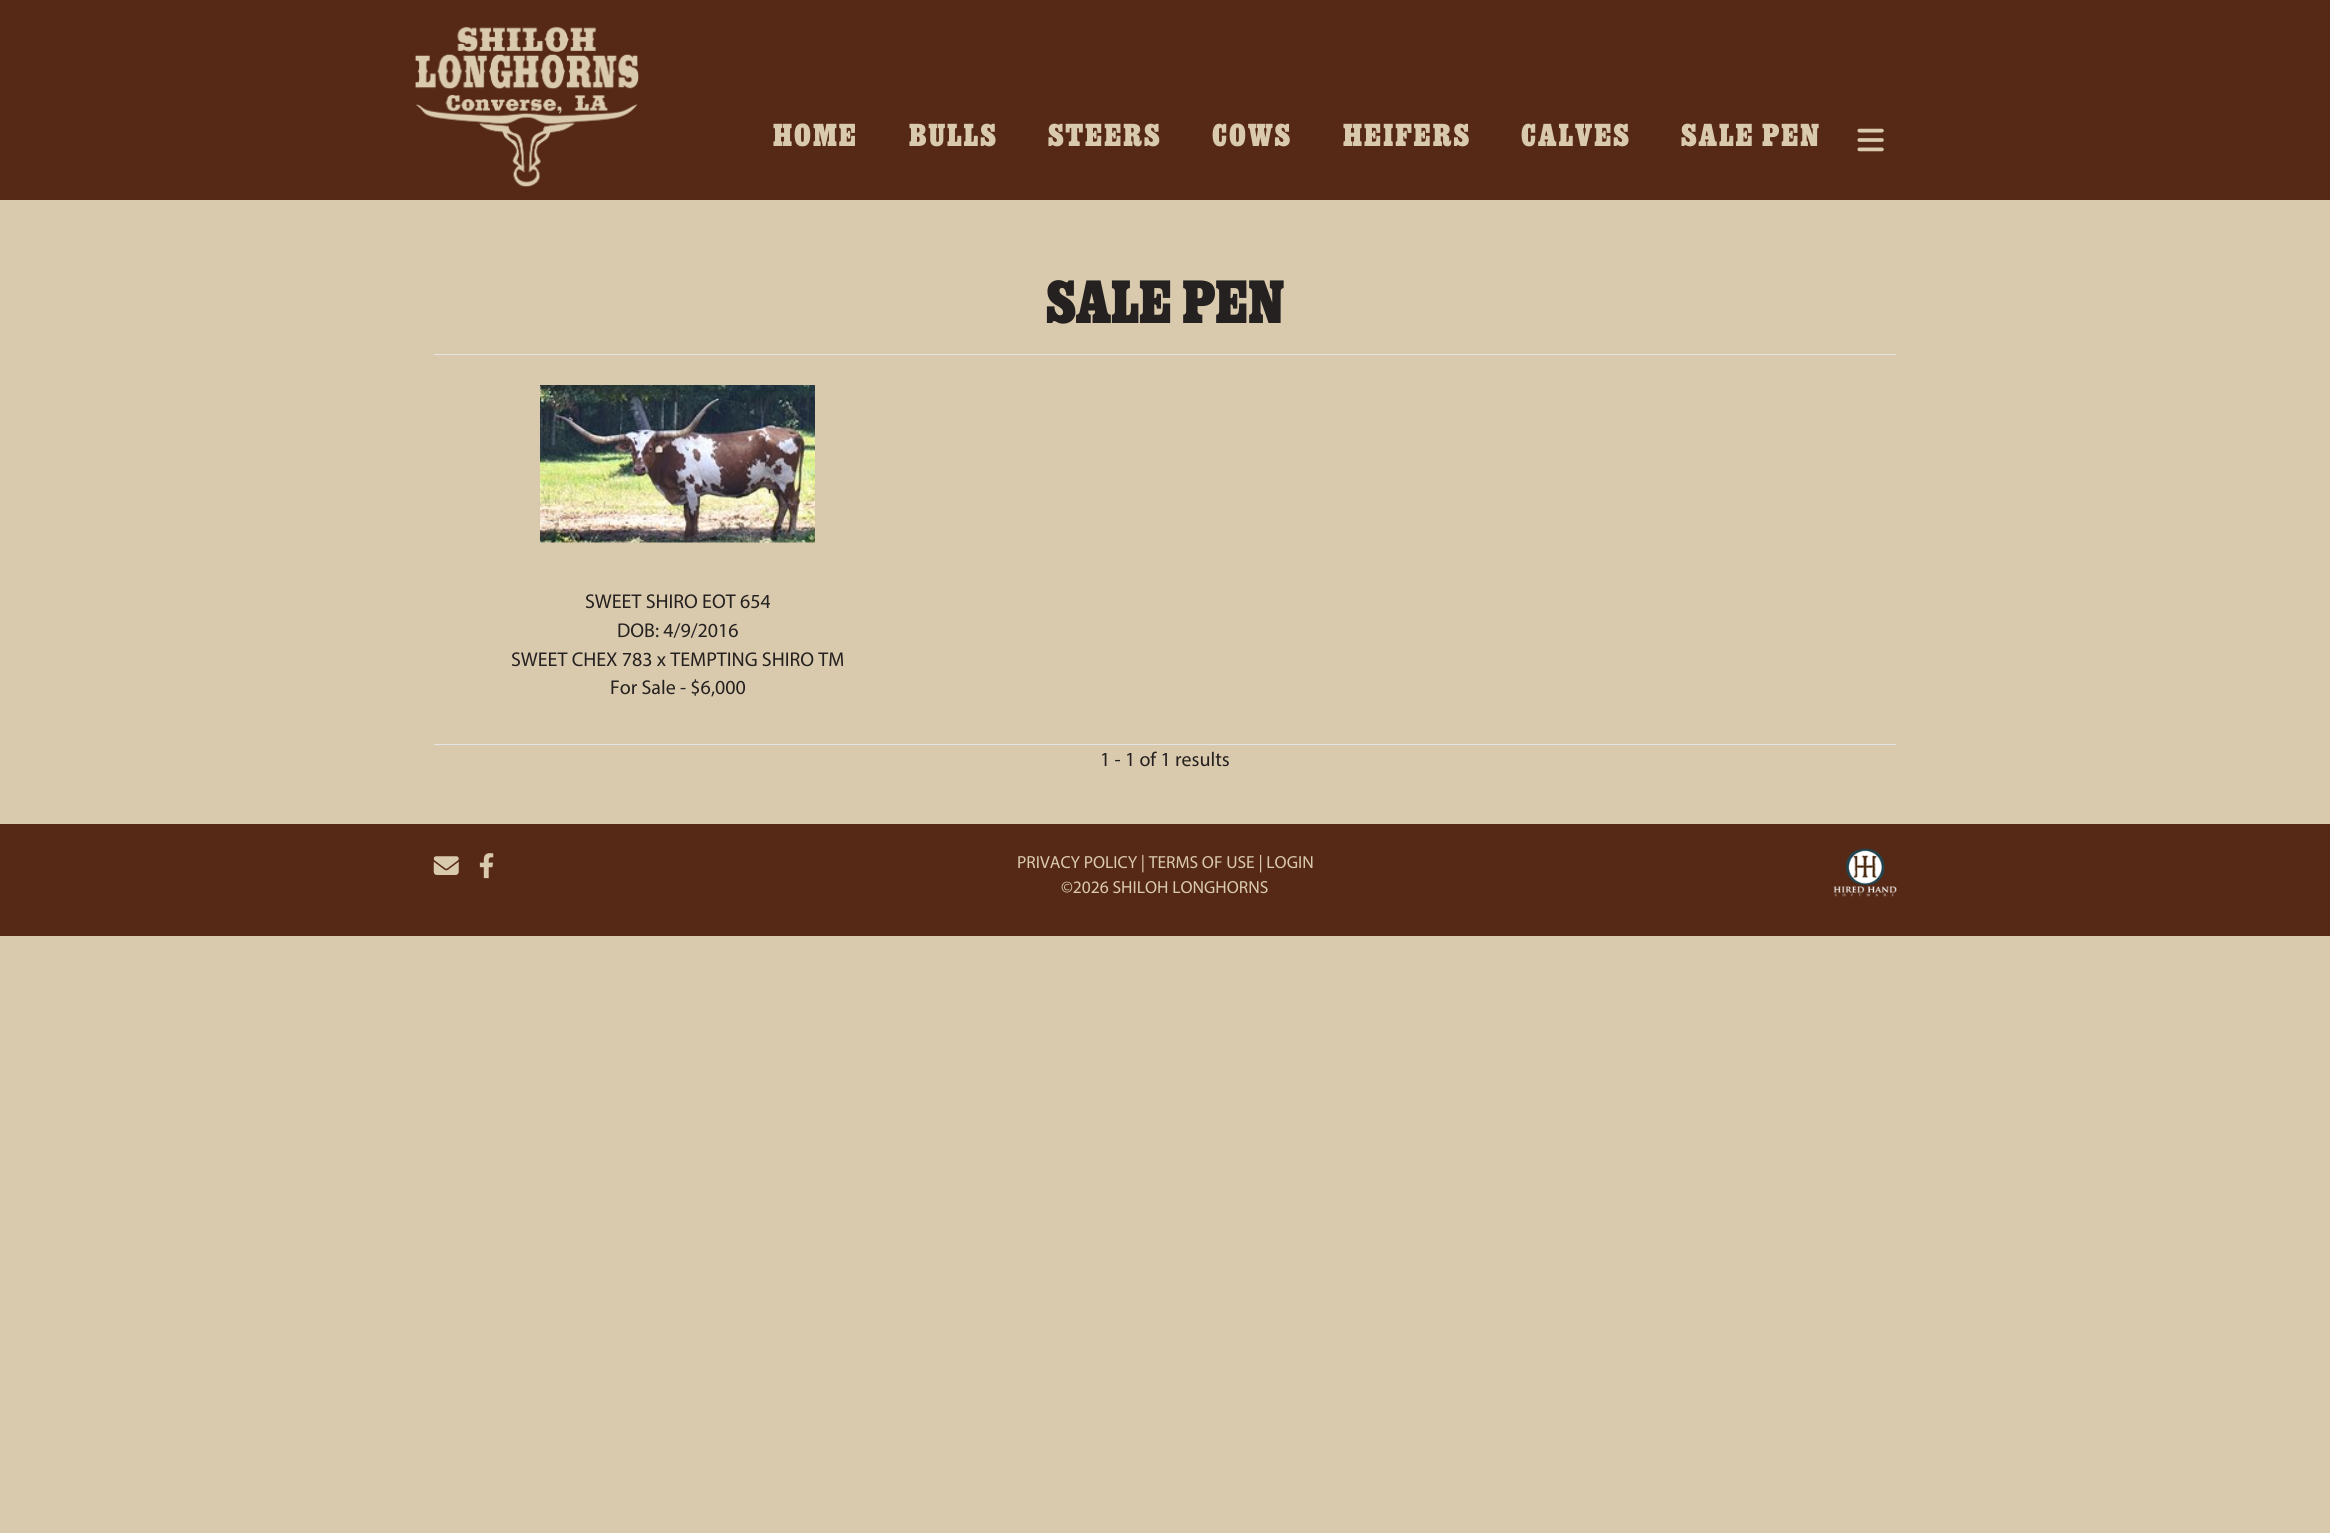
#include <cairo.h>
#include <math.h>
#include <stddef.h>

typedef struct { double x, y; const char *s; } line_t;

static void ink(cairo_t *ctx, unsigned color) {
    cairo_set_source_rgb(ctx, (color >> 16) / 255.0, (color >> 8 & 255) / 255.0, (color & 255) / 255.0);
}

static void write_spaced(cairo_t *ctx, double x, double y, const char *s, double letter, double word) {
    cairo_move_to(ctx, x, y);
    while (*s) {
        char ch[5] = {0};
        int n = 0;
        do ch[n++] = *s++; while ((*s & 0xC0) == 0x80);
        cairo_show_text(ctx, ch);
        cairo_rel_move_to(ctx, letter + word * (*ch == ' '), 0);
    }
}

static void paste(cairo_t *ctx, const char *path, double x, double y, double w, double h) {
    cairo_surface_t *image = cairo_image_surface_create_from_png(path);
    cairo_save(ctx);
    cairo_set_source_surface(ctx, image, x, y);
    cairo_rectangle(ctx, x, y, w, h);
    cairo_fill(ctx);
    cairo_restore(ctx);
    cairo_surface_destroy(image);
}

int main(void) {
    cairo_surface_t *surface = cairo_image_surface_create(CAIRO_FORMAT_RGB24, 2330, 1533);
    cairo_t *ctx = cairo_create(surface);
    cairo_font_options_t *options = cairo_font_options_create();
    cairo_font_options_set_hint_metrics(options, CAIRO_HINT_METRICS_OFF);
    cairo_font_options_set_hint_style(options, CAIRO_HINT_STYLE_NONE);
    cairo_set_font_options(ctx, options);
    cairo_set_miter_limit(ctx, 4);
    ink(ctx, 0xDACAAD);
    cairo_paint(ctx);
    ink(ctx, 0x562916);
    cairo_rectangle(ctx, 0, 0, 2330, 200);
    cairo_fill(ctx);
    paste(ctx, "media/1.png", 415, 26, 224, 161);
    cairo_select_font_face(ctx, "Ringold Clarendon", CAIRO_FONT_SLANT_NORMAL, CAIRO_FONT_WEIGHT_NORMAL);
    cairo_set_font_size(ctx, 31.25);
    ink(ctx, 0xDACAAD);
    {
        static const line_t items[] = {
            {773, 146, "HOME"},
            {909, 146, "BULLS"},
            {1048, 146, "STEERS"},
            {1212, 146, "COWS"},
            {1343, 146, "HEIFERS"},
            {1521, 146, "CALVES"},
            {1681, 146, "SALE PEN"},
        };
        for (size_t i = 0; i < sizeof items / sizeof *items; i++) {
            write_spaced(ctx, items[i].x, items[i].y, items[i].s, 2, 0);
        }
    }
    paste(ctx, "media/2.png", 1857, 128, 27, 24);
    cairo_set_font_size(ctx, 60);
    ink(ctx, 0x252120);
    cairo_move_to(ctx, 1046, 323);
    cairo_show_text(ctx, "Sale Pen");
    ink(ctx, 0xE5E5E5);
    cairo_rectangle(ctx, 434, 354, 1462, 1);
    cairo_fill(ctx);
    paste(ctx, "media/3.png", 540, 385, 275, 158);
    cairo_select_font_face(ctx, "Myriad", CAIRO_FONT_SLANT_NORMAL, CAIRO_FONT_WEIGHT_NORMAL);
    cairo_set_font_size(ctx, 20);
    ink(ctx, 0x252120);
    {
        static const line_t items[] = {
            {585, 608, "SWEET SHIRO EOT 654"},
            {617, 637, "DOB: 4/9/2016"},
            {511, 666, "SWEET CHEX 783 x TEMPTING SHIRO TM"},
            {610, 694, "For Sale - $6,000"},
        };
        for (size_t i = 0; i < sizeof items / sizeof *items; i++) {
            cairo_move_to(ctx, items[i].x, items[i].y);
            cairo_show_text(ctx, items[i].s);
        }
    }
    ink(ctx, 0xE5E5E5);
    cairo_rectangle(ctx, 434, 744, 1462, 1);
    cairo_fill(ctx);
    ink(ctx, 0x252120);
    cairo_move_to(ctx, 1100, 766);
    cairo_show_text(ctx, "1 - 1 of 1 results");
    ink(ctx, 0x562916);
    cairo_rectangle(ctx, 0, 824, 2330, 112);
    cairo_fill(ctx);
    paste(ctx, "media/4.png", 433, 856, 26, 19);
    paste(ctx, "media/5.png", 479, 853, 15, 26);
    cairo_set_font_size(ctx, 17.5);
    ink(ctx, 0xDACAAD);
    cairo_move_to(ctx, 1017, 868);
    cairo_show_text(ctx, "PRIVACY POLICY | TERMS OF USE | LOGIN");
    cairo_move_to(ctx, 1061, 893);
    cairo_show_text(ctx, "©2026 SHILOH LONGHORNS");
    paste(ctx, "media/6.png", 1833, 848, 64, 49);
    cairo_surface_write_to_png(surface, "image.png");
    cairo_font_options_destroy(options);
    cairo_destroy(ctx);
    cairo_surface_destroy(surface);
    return 0;
}
